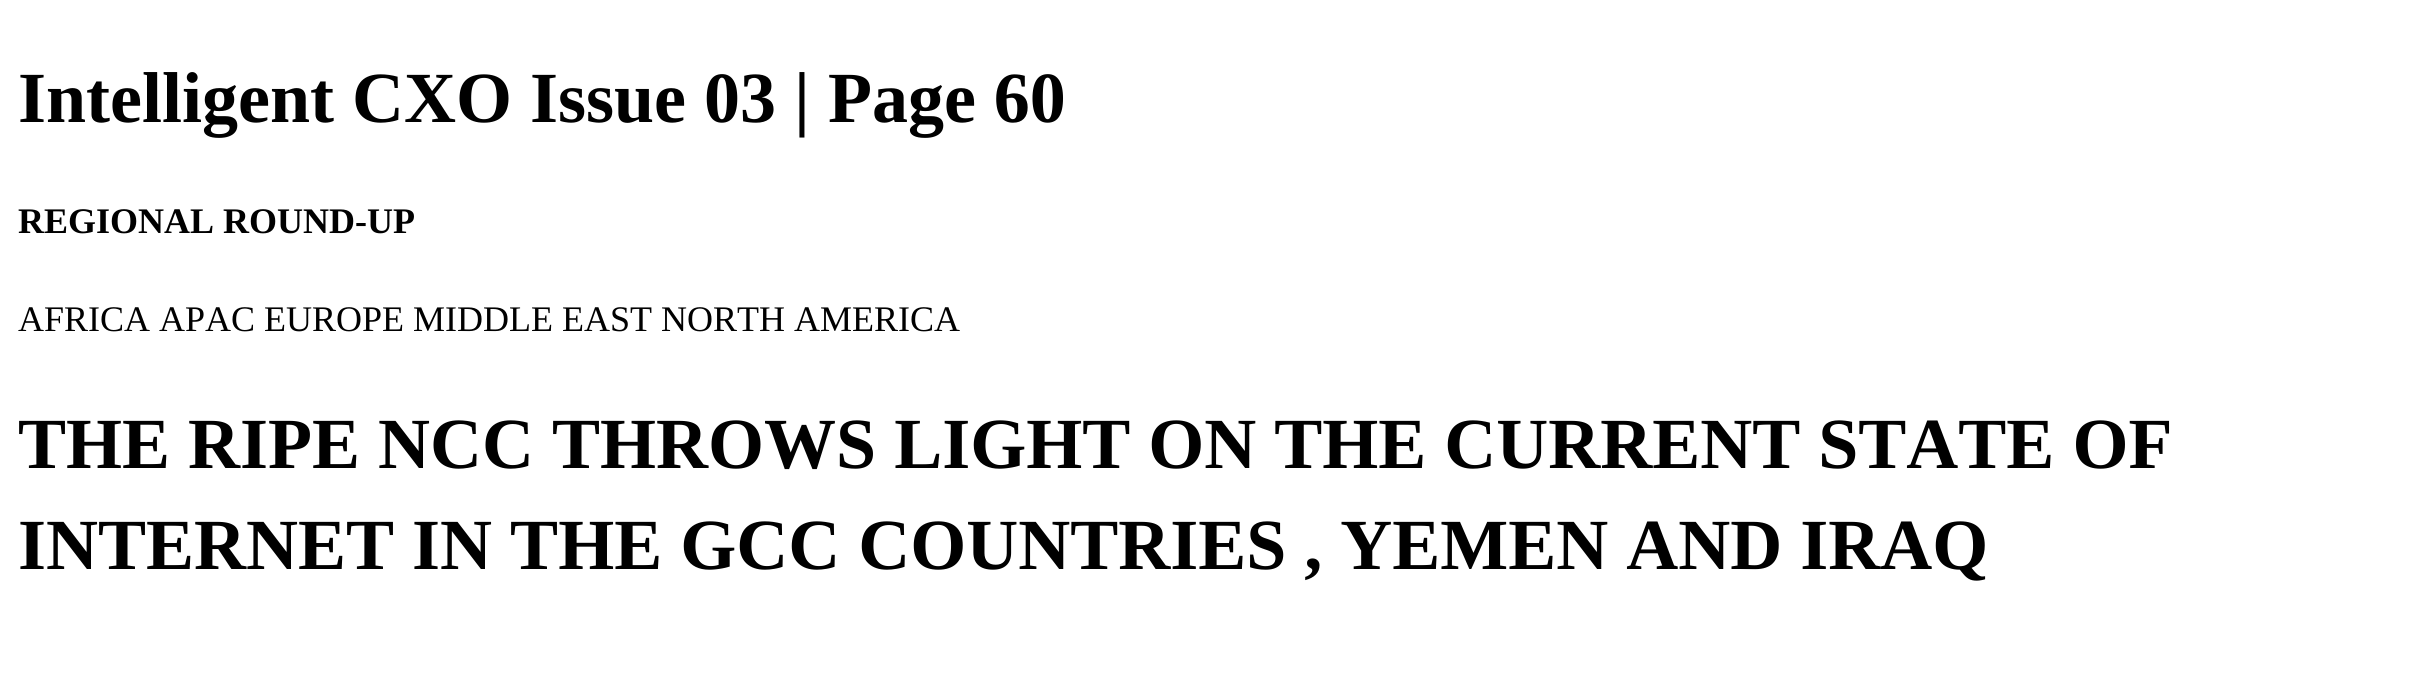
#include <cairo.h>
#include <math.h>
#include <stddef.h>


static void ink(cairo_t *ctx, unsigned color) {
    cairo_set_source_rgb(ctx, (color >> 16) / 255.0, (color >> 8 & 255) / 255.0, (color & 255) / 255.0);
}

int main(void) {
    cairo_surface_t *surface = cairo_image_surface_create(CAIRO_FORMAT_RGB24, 2428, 687);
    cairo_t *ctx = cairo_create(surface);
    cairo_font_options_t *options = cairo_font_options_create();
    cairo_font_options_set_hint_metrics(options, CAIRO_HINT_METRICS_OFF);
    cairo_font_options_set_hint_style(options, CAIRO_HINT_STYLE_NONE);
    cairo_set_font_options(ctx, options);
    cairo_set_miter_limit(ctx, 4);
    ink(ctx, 0xFFFFFF);
    cairo_paint(ctx);
    cairo_select_font_face(ctx, "Liberation Serif", CAIRO_FONT_SLANT_NORMAL, CAIRO_FONT_WEIGHT_BOLD);
    cairo_set_font_size(ctx, 72);
    ink(ctx, 0x000000);
    cairo_move_to(ctx, 18, 122);
    cairo_show_text(ctx, "Intelligent CXO Issue 03 | Page 60");
    cairo_set_font_size(ctx, 36);
    cairo_move_to(ctx, 18, 233);
    cairo_show_text(ctx, "REGIONAL ROUND-UP");
    cairo_select_font_face(ctx, "Liberation Serif", CAIRO_FONT_SLANT_NORMAL, CAIRO_FONT_WEIGHT_NORMAL);
    cairo_move_to(ctx, 18, 331);
    cairo_show_text(ctx, "AFRICA APAC EUROPE MIDDLE EAST NORTH AMERICA");
    cairo_select_font_face(ctx, "Liberation Serif", CAIRO_FONT_SLANT_NORMAL, CAIRO_FONT_WEIGHT_BOLD);
    cairo_set_font_size(ctx, 72);
    cairo_move_to(ctx, 18, 468);
    cairo_show_text(ctx, "THE RIPE NCC THROWS LIGHT ON THE CURRENT STATE OF");
    cairo_move_to(ctx, 18, 569);
    cairo_show_text(ctx, "INTERNET IN THE GCC COUNTRIES , YEMEN AND IRAQ");
    cairo_surface_write_to_png(surface, "image.png");
    cairo_font_options_destroy(options);
    cairo_destroy(ctx);
    cairo_surface_destroy(surface);
    return 0;
}
